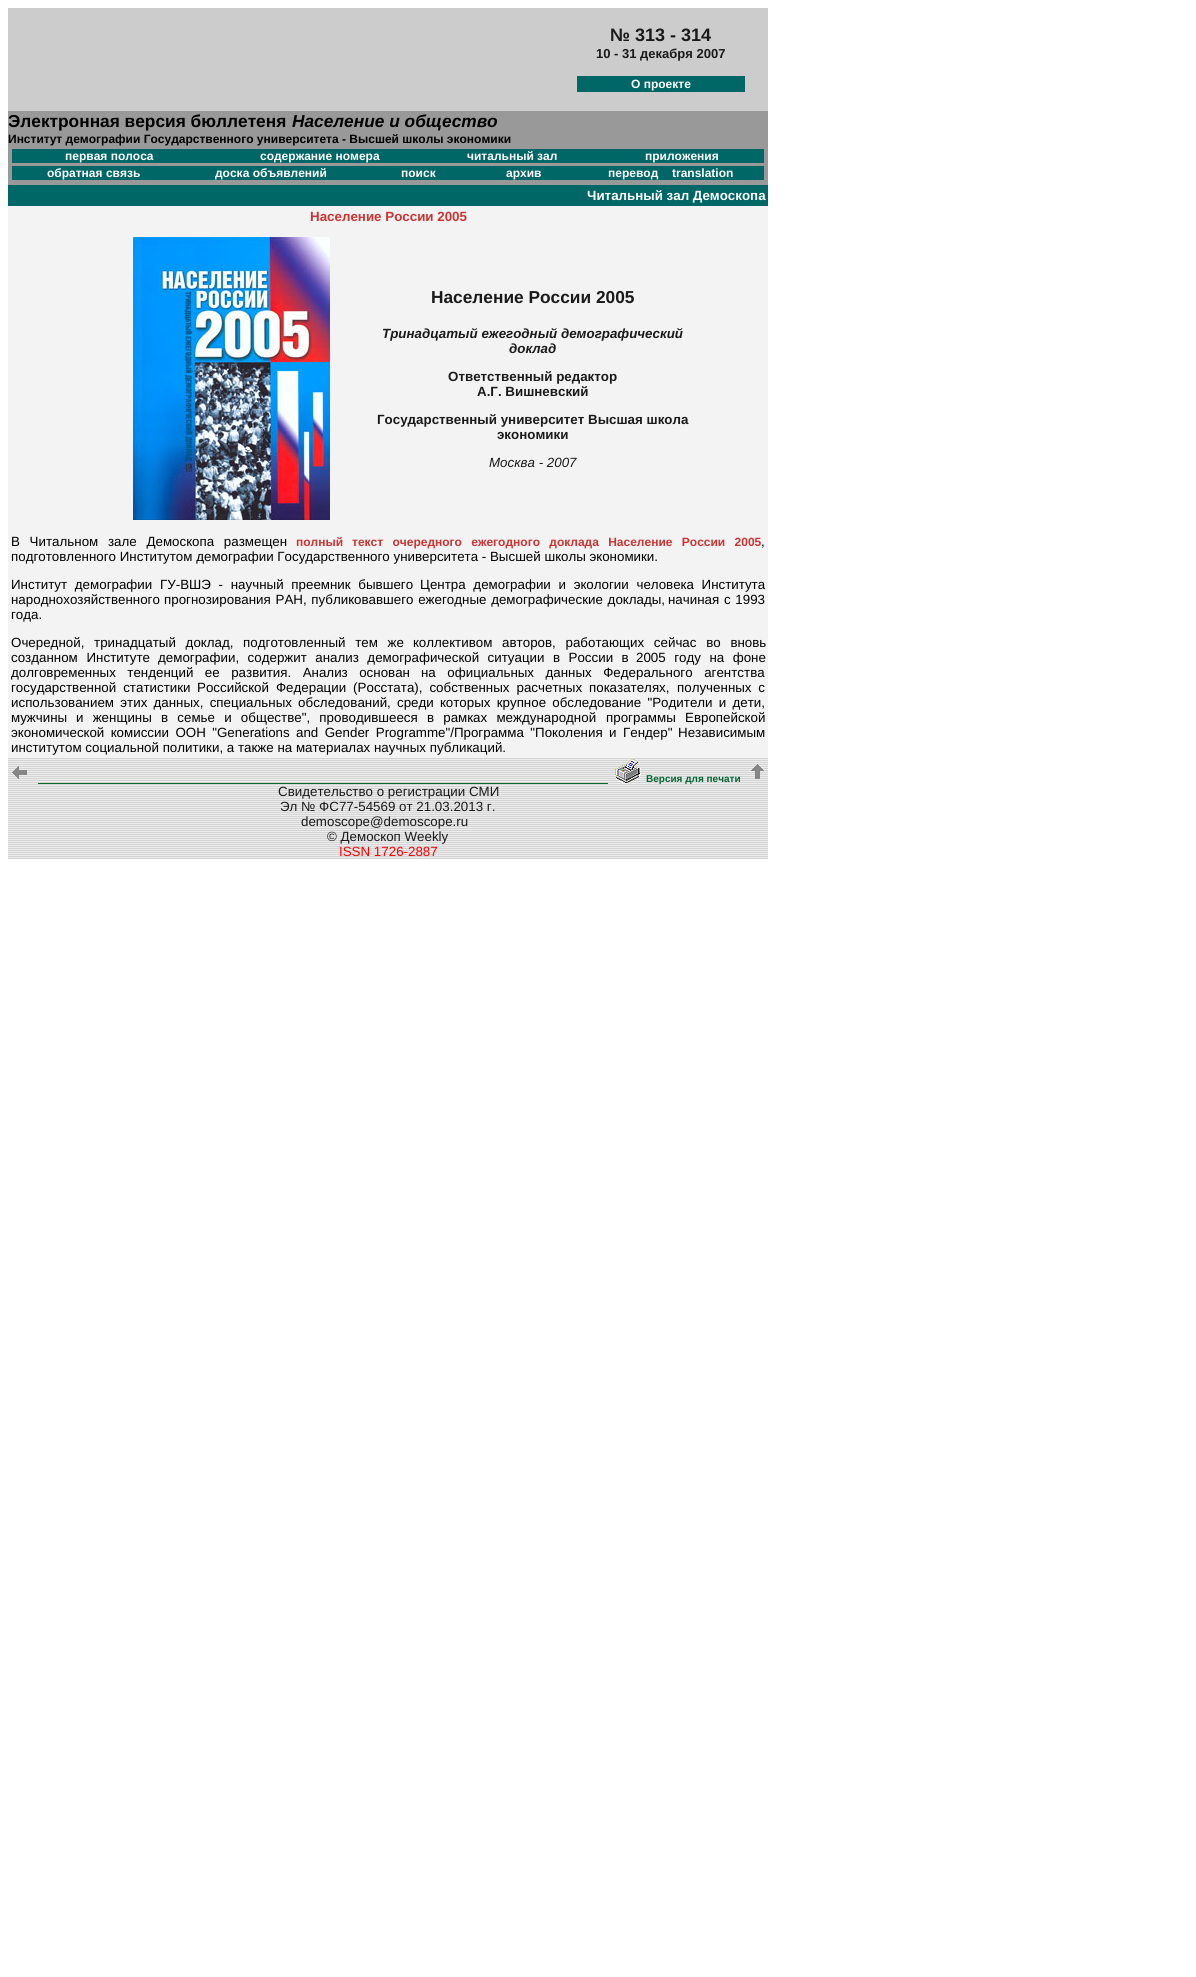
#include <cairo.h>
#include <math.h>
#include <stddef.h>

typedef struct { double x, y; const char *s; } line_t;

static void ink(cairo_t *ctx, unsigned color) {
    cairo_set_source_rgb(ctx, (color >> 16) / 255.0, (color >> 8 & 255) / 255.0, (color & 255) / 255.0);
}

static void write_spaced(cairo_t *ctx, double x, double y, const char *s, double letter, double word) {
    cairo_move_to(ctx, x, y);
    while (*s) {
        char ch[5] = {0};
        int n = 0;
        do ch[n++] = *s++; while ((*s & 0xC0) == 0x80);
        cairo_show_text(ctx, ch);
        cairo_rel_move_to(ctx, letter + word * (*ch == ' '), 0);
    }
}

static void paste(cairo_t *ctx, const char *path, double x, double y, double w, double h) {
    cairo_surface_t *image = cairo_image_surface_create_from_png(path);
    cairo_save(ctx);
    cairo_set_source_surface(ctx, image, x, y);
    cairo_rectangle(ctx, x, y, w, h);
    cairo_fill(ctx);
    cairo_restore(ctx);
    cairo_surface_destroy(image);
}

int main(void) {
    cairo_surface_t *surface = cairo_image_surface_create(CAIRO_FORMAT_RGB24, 1196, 1977);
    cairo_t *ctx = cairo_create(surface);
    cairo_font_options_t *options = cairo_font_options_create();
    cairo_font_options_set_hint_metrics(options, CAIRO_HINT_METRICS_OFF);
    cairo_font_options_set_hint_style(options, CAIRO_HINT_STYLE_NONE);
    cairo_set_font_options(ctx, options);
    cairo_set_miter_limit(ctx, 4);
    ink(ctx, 0xFFFFFF);
    cairo_paint(ctx);
    ink(ctx, 0xCCCCCC);
    cairo_rectangle(ctx, 8, 8, 760, 103);
    cairo_fill(ctx);
    cairo_select_font_face(ctx, "Liberation Sans", CAIRO_FONT_SLANT_NORMAL, CAIRO_FONT_WEIGHT_BOLD);
    cairo_set_font_size(ctx, 18);
    ink(ctx, 0x1A1A1A);
    cairo_move_to(ctx, 610, 41);
    cairo_show_text(ctx, "№ 313 - 314");
    cairo_set_font_size(ctx, 13);
    cairo_move_to(ctx, 596, 58);
    cairo_show_text(ctx, "10 - 31 декабря 2007");
    ink(ctx, 0x006666);
    cairo_rectangle(ctx, 577, 76, 168, 16);
    cairo_fill(ctx);
    cairo_set_font_size(ctx, 12);
    ink(ctx, 0xFFFFFF);
    cairo_move_to(ctx, 631, 88);
    cairo_show_text(ctx, "О проекте");
    ink(ctx, 0x999999);
    cairo_rectangle(ctx, 8, 111, 760, 74);
    cairo_fill(ctx);
    cairo_set_font_size(ctx, 17.3);
    ink(ctx, 0x000000);
    cairo_move_to(ctx, 8, 127);
    cairo_show_text(ctx, "Электронная версия бюллетеня");
    cairo_select_font_face(ctx, "Liberation Sans", CAIRO_FONT_SLANT_ITALIC, CAIRO_FONT_WEIGHT_BOLD);
    cairo_move_to(ctx, 292, 127);
    cairo_show_text(ctx, "Население и общество");
    cairo_select_font_face(ctx, "Liberation Sans", CAIRO_FONT_SLANT_NORMAL, CAIRO_FONT_WEIGHT_BOLD);
    cairo_set_font_size(ctx, 12);
    cairo_move_to(ctx, 8, 143);
    cairo_show_text(ctx, "Институт демографии Государственного университета - Высшей школы экономики");
    ink(ctx, 0x006666);
    cairo_rectangle(ctx, 12, 149, 752, 14);
    cairo_fill(ctx);
    ink(ctx, 0xFFFFFF);
    {
        static const line_t items[] = {
            {65, 160, "первая полоса"},
            {260, 160, "содержание номера"},
            {467, 160, "читальный зал"},
            {645, 160, "приложения"},
        };
        for (size_t i = 0; i < sizeof items / sizeof *items; i++) {
            cairo_move_to(ctx, items[i].x, items[i].y);
            cairo_show_text(ctx, items[i].s);
        }
    }
    ink(ctx, 0x006666);
    cairo_rectangle(ctx, 12, 166, 752, 14);
    cairo_fill(ctx);
    ink(ctx, 0xFFFFFF);
    {
        static const line_t items[] = {
            {47, 177, "обратная связь"},
            {215, 177, "доска объявлений"},
            {401, 177, "поиск"},
            {506, 177, "архив"},
            {608, 177, "перевод"},
            {672, 177, "translation"},
        };
        for (size_t i = 0; i < sizeof items / sizeof *items; i++) {
            cairo_move_to(ctx, items[i].x, items[i].y);
            cairo_show_text(ctx, items[i].s);
        }
    }
    ink(ctx, 0xF3F3F3);
    cairo_rectangle(ctx, 8, 206, 760, 552);
    cairo_fill(ctx);
    ink(ctx, 0x006666);
    cairo_rectangle(ctx, 8, 185, 760, 21);
    cairo_fill(ctx);
    cairo_set_font_size(ctx, 13.35);
    ink(ctx, 0xFFFFFF);
    cairo_move_to(ctx, 587, 200);
    cairo_show_text(ctx, "Читальный зал Демоскопа");
    ink(ctx, 0xCC3333);
    cairo_move_to(ctx, 310, 221);
    cairo_show_text(ctx, "Население России 2005");
    paste(ctx, "media/1.png", 133, 237, 197, 283);
    cairo_set_font_size(ctx, 17.3);
    ink(ctx, 0x1A1A1A);
    cairo_move_to(ctx, 431, 303);
    cairo_show_text(ctx, "Население России 2005");
    cairo_select_font_face(ctx, "Liberation Sans", CAIRO_FONT_SLANT_ITALIC, CAIRO_FONT_WEIGHT_BOLD);
    cairo_set_font_size(ctx, 13.35);
    cairo_move_to(ctx, 382, 338);
    cairo_show_text(ctx, "Тринадцатый ежегодный демографический");
    cairo_move_to(ctx, 509, 353);
    cairo_show_text(ctx, "доклад");
    cairo_select_font_face(ctx, "Liberation Sans", CAIRO_FONT_SLANT_NORMAL, CAIRO_FONT_WEIGHT_BOLD);
    {
        static const line_t items[] = {
            {448, 381, "Ответственный редактор"},
            {477, 396, "А.Г. Вишневский"},
            {377, 424, "Государственный университет Высшая школа"},
            {497, 439, "экономики"},
        };
        for (size_t i = 0; i < sizeof items / sizeof *items; i++) {
            cairo_move_to(ctx, items[i].x, items[i].y);
            cairo_show_text(ctx, items[i].s);
        }
    }
    cairo_select_font_face(ctx, "Liberation Sans", CAIRO_FONT_SLANT_ITALIC, CAIRO_FONT_WEIGHT_NORMAL);
    cairo_move_to(ctx, 489, 467);
    cairo_show_text(ctx, "Москва - 2007");
    cairo_select_font_face(ctx, "Liberation Sans", CAIRO_FONT_SLANT_NORMAL, CAIRO_FONT_WEIGHT_NORMAL);
    ink(ctx, 0x000000);
    write_spaced(ctx, 11, 546, "В Читальном зале Демоскопа размещен", 0, 6);
    cairo_select_font_face(ctx, "Liberation Sans", CAIRO_FONT_SLANT_NORMAL, CAIRO_FONT_WEIGHT_BOLD);
    cairo_set_font_size(ctx, 12);
    ink(ctx, 0xCC3333);
    cairo_move_to(ctx, 296, 546);
    cairo_show_text(ctx, "полный");
    write_spaced(ctx, 352, 546, "текст очередного ежегодного доклада Население России 2005", 0, 6);
    cairo_select_font_face(ctx, "Liberation Sans", CAIRO_FONT_SLANT_NORMAL, CAIRO_FONT_WEIGHT_NORMAL);
    cairo_set_font_size(ctx, 13.35);
    ink(ctx, 0x000000);
    cairo_move_to(ctx, 761, 546);
    cairo_show_text(ctx, ",");
    cairo_move_to(ctx, 11, 561);
    cairo_show_text(ctx, "подготовленного Институтом демографии Государственного университета - Высшей школы экономики.");
    write_spaced(ctx, 11, 589, "Институт демографии ГУ-ВШЭ - научный преемник бывшего", 0, 4);
    write_spaced(ctx, 420, 589, "Центра демографии и экологии человека Института", 0, 4);
    cairo_move_to(ctx, 11, 604);
    cairo_show_text(ctx, "народнохозяйственного");
    write_spaced(ctx, 164, 604, "прогнозирования РАН, публиковавшего ежегодные демографические доклады,", 0, 1);
    write_spaced(ctx, 668, 604, "начиная с 1993", 0, 1);
    cairo_move_to(ctx, 11, 619);
    cairo_show_text(ctx, "года.");
    write_spaced(ctx, 11, 647, "Очередной, тринадцатый доклад, подготовленный тем же", 0, 6);
    write_spaced(ctx, 413, 647, "коллективом авторов, работающих сейчас во вновь", 0, 6);
    write_spaced(ctx, 11, 662, "созданном Институте", 0, 5);
    write_spaced(ctx, 158, 662, "демографии, содержит анализ демографической ситуации в России в", 0, 4.75);
    write_spaced(ctx, 636, 662, "2005 году на фоне", 0, 4.75);
    write_spaced(ctx, 11, 677, "долговременных тенденций ее развития. Анализ основан", 0, 7.75);
    write_spaced(ctx, 421, 677, "на официальных данных Федерального агентства", 0, 7.75);
    write_spaced(ctx, 11, 692, "государственной статистики", 0, 3.25);
    write_spaced(ctx, 197, 692, "Российской Федерации (Росстата), собственных расчетных показателях,", 0, 3.25);
    write_spaced(ctx, 677, 692, "полученных с", 0, 3);
    write_spaced(ctx, 11, 707, "использованием этих данных, специальных обследований,", 0, 2.5);
    write_spaced(ctx, 397, 707, "среди которых крупное обследование \"Родители и дети,", 0, 2.5);
    cairo_move_to(ctx, 11, 722);
    cairo_show_text(ctx, "мужчины");
    write_spaced(ctx, 76, 722, "и женщины в семье и обществе\", проводившееся в рамках международной", 0, 5.5);
    write_spaced(ctx, 606, 722, "программы Европейской", 0, 5.5);
    write_spaced(ctx, 11, 737, "экономической комиссии ООН \"Generations", 0, 2.75);
    write_spaced(ctx, 296, 737, "and Gender Programme\"/Программа \"Поколения и Гендер\"", 0, 2.75);
    cairo_move_to(ctx, 678, 737);
    cairo_show_text(ctx, "Независимым");
    cairo_move_to(ctx, 11, 752);
    cairo_show_text(ctx, "институтом социальной политики, а также на материалах научных публикаций.");
    paste(ctx, "media/2.png", 8, 758, 760, 26);
    paste(ctx, "media/3.png", 12, 766, 15, 13);
    paste(ctx, "media/4.png", 615, 758, 26, 26);
    paste(ctx, "media/5.png", 751, 764, 13, 15);
    ink(ctx, 0x0D6729);
    cairo_rectangle(ctx, 38, 783, 570, 1);
    cairo_fill(ctx);
    paste(ctx, "media/6.png", 8, 784, 760, 75);
    cairo_select_font_face(ctx, "Liberation Sans", CAIRO_FONT_SLANT_NORMAL, CAIRO_FONT_WEIGHT_BOLD);
    cairo_set_font_size(ctx, 10);
    ink(ctx, 0x006633);
    cairo_move_to(ctx, 646, 782);
    cairo_show_text(ctx, "Версия для печати");
    cairo_select_font_face(ctx, "Liberation Sans", CAIRO_FONT_SLANT_NORMAL, CAIRO_FONT_WEIGHT_NORMAL);
    cairo_set_font_size(ctx, 13.35);
    ink(ctx, 0x1A1A1A);
    {
        static const line_t items[] = {
            {278, 796, "Свидетельство о регистрации СМИ"},
            {280, 811, "Эл № ФС77-54569 от 21.03.2013 г."},
            {301, 826, "demoscope@demoscope.ru"},
            {327, 841, "© Демоскоп Weekly"},
        };
        for (size_t i = 0; i < sizeof items / sizeof *items; i++) {
            cairo_move_to(ctx, items[i].x, items[i].y);
            cairo_show_text(ctx, items[i].s);
        }
    }
    ink(ctx, 0xFF0000);
    cairo_move_to(ctx, 339, 856);
    cairo_show_text(ctx, "ISSN 1726-2887");
    cairo_surface_write_to_png(surface, "image.png");
    cairo_font_options_destroy(options);
    cairo_destroy(ctx);
    cairo_surface_destroy(surface);
    return 0;
}
